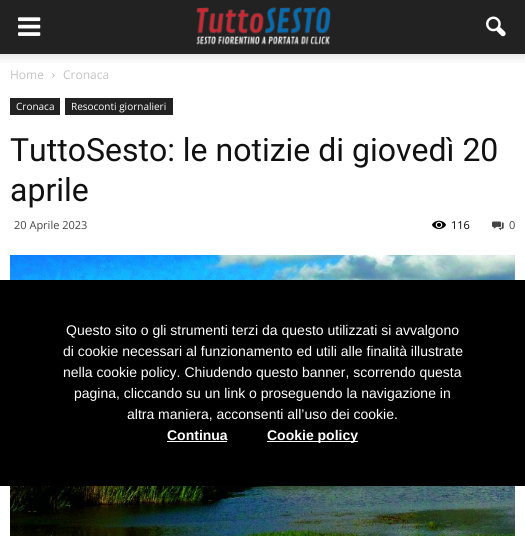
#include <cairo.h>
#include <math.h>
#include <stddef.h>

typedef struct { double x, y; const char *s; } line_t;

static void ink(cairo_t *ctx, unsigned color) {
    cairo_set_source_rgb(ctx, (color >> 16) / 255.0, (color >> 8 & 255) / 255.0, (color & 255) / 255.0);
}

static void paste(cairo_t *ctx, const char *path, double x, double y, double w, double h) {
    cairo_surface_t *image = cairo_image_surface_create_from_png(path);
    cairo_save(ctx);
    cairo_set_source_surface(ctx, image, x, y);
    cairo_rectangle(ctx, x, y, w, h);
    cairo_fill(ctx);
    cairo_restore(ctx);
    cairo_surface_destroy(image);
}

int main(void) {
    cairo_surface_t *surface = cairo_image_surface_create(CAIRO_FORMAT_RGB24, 525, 536);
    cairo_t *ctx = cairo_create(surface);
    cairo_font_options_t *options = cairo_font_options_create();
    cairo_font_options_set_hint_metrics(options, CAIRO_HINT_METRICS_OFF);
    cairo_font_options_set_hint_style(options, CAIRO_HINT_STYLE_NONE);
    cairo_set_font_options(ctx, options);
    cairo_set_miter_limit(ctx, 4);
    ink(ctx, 0xFFFFFF);
    cairo_paint(ctx);
    ink(ctx, 0x222222);
    cairo_rectangle(ctx, 0, 0, 525, 54);
    cairo_fill(ctx);
    paste(ctx, "media/1.png", 18, 17, 23, 19);
    paste(ctx, "media/2.png", 196, 7, 135, 38);
    paste(ctx, "media/3.png", 486, 16, 20, 21);
    paste(ctx, "media/4.png", 0, 54, 525, 9);
    cairo_select_font_face(ctx, "Open Sans", CAIRO_FONT_SLANT_NORMAL, CAIRO_FONT_WEIGHT_NORMAL);
    cairo_set_font_size(ctx, 12);
    ink(ctx, 0xC3C3C3);
    cairo_move_to(ctx, 10, 79);
    cairo_show_text(ctx, "Home");
    paste(ctx, "media/5.png", 52, 73, 3, 5);
    cairo_move_to(ctx, 63, 79);
    cairo_show_text(ctx, "Cronaca");
    ink(ctx, 0x222222);
    cairo_rectangle(ctx, 10, 98, 50, 17);
    cairo_fill(ctx);
    cairo_set_font_size(ctx, 10);
    ink(ctx, 0xFFFFFF);
    cairo_move_to(ctx, 16, 110);
    cairo_show_text(ctx, "Cronaca");
    ink(ctx, 0x222222);
    cairo_rectangle(ctx, 65, 98, 108, 17);
    cairo_fill(ctx);
    ink(ctx, 0xFFFFFF);
    cairo_move_to(ctx, 71, 110);
    cairo_show_text(ctx, "Resoconti giornalieri");
    cairo_select_font_face(ctx, "Roboto", CAIRO_FONT_SLANT_NORMAL, CAIRO_FONT_WEIGHT_NORMAL);
    cairo_set_font_size(ctx, 32);
    ink(ctx, 0x111111);
    cairo_move_to(ctx, 10, 161);
    cairo_show_text(ctx, "TuttoSesto: le notizie di giovedì 20");
    cairo_move_to(ctx, 10, 201);
    cairo_show_text(ctx, "aprile");
    cairo_select_font_face(ctx, "Open Sans", CAIRO_FONT_SLANT_NORMAL, CAIRO_FONT_WEIGHT_NORMAL);
    cairo_set_font_size(ctx, 11);
    ink(ctx, 0x444444);
    cairo_move_to(ctx, 14, 229);
    cairo_show_text(ctx, "20 Aprile 2023");
    paste(ctx, "media/6.png", 432, 220, 14, 9);
    ink(ctx, 0x000000);
    cairo_move_to(ctx, 451, 229);
    cairo_show_text(ctx, "116");
    paste(ctx, "media/7.png", 492, 221, 12, 10);
    ink(ctx, 0x444444);
    cairo_move_to(ctx, 509, 229);
    cairo_show_text(ctx, "0");
    paste(ctx, "media/8.png", 10, 255, 505, 281);
    ink(ctx, 0x000000);
    cairo_rectangle(ctx, 0, 280, 525, 206);
    cairo_fill(ctx);
    cairo_select_font_face(ctx, "Liberation Sans", CAIRO_FONT_SLANT_NORMAL, CAIRO_FONT_WEIGHT_NORMAL);
    cairo_set_font_size(ctx, 14);
    ink(ctx, 0xFFFFFF);
    {
        static const line_t items[] = {
            {66, 335, "Questo sito o gli strumenti terzi da questo utilizzati si avvalgono"},
            {63, 356, "di cookie necessari al funzionamento ed utili alle finalità illustrate"},
            {63, 377, "nella cookie policy. Chiudendo questo banner, scorrendo questa"},
            {74, 398, "pagina, cliccando su un link o proseguendo la navigazione in"},
            {127, 419, "altra maniera, acconsenti all’uso dei cookie."},
        };
        for (size_t i = 0; i < sizeof items / sizeof *items; i++) {
            cairo_move_to(ctx, items[i].x, items[i].y);
            cairo_show_text(ctx, items[i].s);
        }
    }
    cairo_select_font_face(ctx, "Liberation Sans", CAIRO_FONT_SLANT_NORMAL, CAIRO_FONT_WEIGHT_BOLD);
    cairo_move_to(ctx, 167, 440);
    cairo_show_text(ctx, "Continua");
    cairo_rectangle(ctx, 167, 441, 60, 1);
    cairo_fill(ctx);
    cairo_rectangle(ctx, 267, 441, 91, 1);
    cairo_fill(ctx);
    cairo_move_to(ctx, 267, 440);
    cairo_show_text(ctx, "Cookie policy");
    cairo_surface_write_to_png(surface, "image.png");
    cairo_font_options_destroy(options);
    cairo_destroy(ctx);
    cairo_surface_destroy(surface);
    return 0;
}
